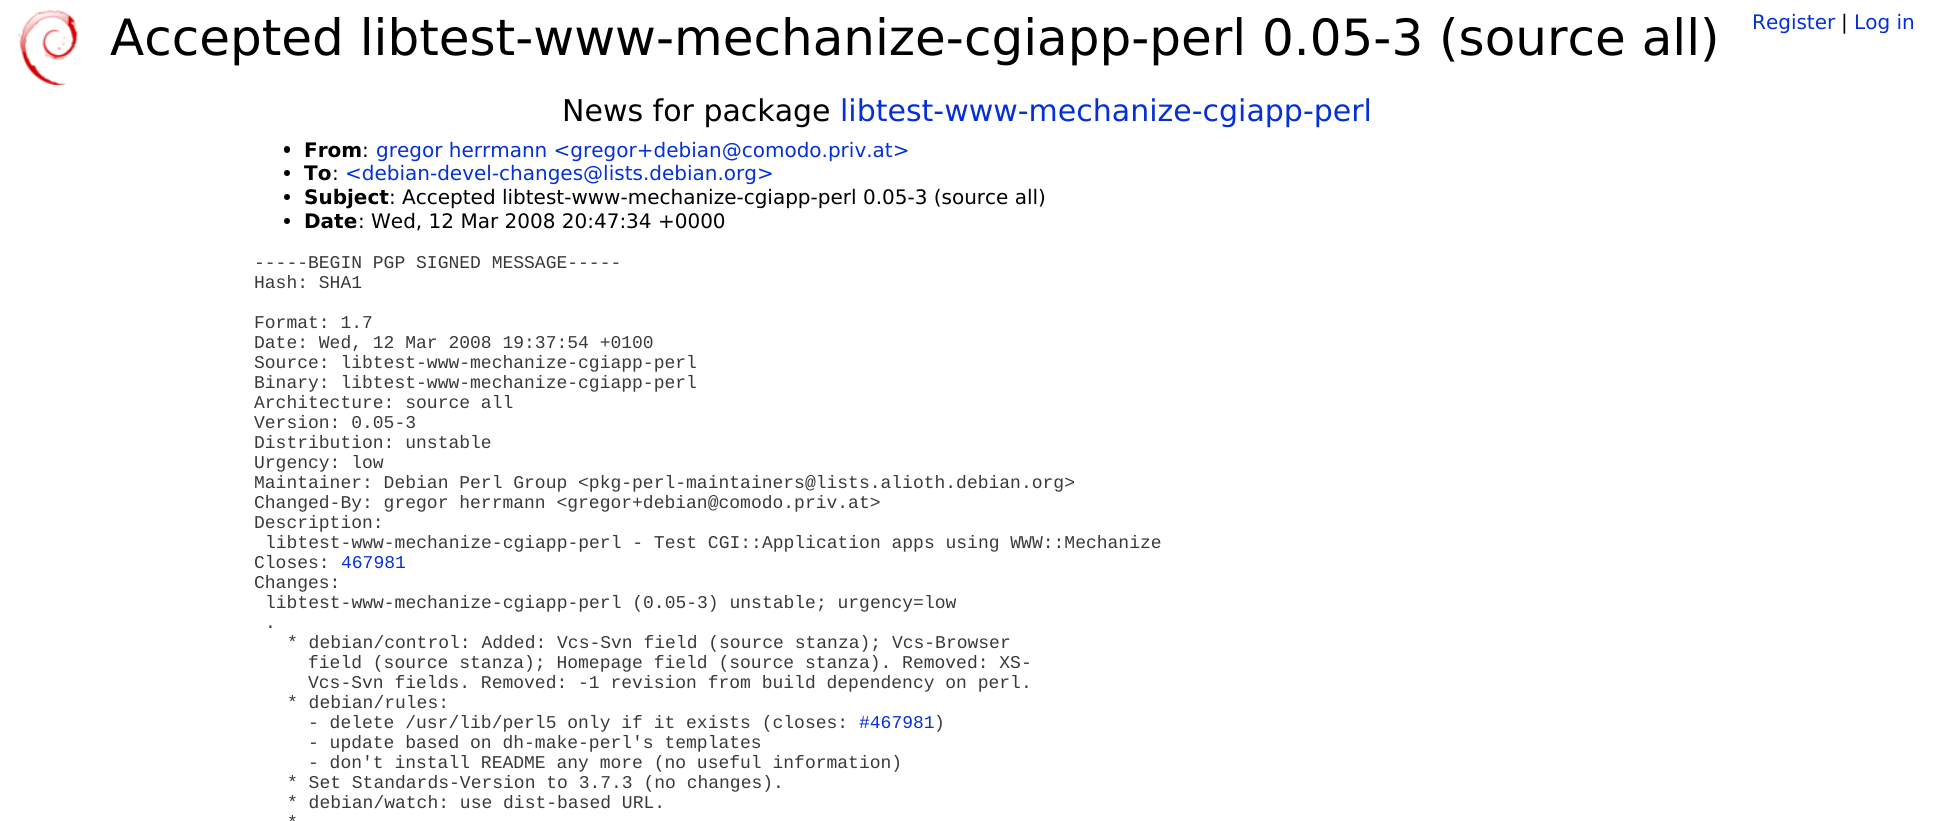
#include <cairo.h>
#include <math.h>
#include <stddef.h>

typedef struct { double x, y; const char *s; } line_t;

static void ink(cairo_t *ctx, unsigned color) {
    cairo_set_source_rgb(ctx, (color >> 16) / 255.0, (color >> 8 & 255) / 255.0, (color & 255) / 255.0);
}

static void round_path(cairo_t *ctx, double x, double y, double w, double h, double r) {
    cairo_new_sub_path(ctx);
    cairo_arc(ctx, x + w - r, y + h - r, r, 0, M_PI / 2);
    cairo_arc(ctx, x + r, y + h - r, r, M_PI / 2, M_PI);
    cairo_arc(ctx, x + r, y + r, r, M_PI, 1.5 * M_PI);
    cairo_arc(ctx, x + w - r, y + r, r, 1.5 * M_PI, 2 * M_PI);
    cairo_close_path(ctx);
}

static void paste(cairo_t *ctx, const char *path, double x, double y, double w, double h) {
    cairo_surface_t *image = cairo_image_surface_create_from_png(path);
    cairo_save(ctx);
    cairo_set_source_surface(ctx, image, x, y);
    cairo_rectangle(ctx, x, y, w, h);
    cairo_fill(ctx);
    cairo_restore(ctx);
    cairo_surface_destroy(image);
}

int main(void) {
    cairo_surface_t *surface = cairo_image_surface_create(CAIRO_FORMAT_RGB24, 1933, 821);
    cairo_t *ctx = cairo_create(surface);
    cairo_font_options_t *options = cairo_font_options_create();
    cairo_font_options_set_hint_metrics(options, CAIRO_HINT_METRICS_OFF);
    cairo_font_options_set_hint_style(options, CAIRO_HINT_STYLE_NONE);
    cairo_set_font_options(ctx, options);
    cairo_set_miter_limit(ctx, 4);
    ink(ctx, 0xFFFFFF);
    cairo_paint(ctx);
    paste(ctx, "media/1.png", 18, 10, 60, 75);
    cairo_select_font_face(ctx, "DejaVu Sans", CAIRO_FONT_SLANT_NORMAL, CAIRO_FONT_WEIGHT_NORMAL);
    cairo_set_font_size(ctx, 50);
    ink(ctx, 0x000000);
    cairo_move_to(ctx, 110, 55);
    cairo_show_text(ctx, "Accepted libtest-www-mechanize-cgiapp-perl 0.05-3 (source all)");
    cairo_set_font_size(ctx, 20);
    ink(ctx, 0x0530D7);
    cairo_move_to(ctx, 1752, 29);
    cairo_show_text(ctx, "Register");
    ink(ctx, 0x000000);
    cairo_move_to(ctx, 1841, 29);
    cairo_show_text(ctx, "|");
    ink(ctx, 0x0530D7);
    cairo_move_to(ctx, 1854, 29);
    cairo_show_text(ctx, "Log in");
    cairo_set_font_size(ctx, 30);
    ink(ctx, 0x000000);
    cairo_move_to(ctx, 562, 121);
    cairo_show_text(ctx, "News for package");
    ink(ctx, 0x0530D7);
    cairo_move_to(ctx, 840, 121);
    cairo_show_text(ctx, "libtest-www-mechanize-cgiapp-perl");
    ink(ctx, 0x000000);
    round_path(ctx, 284, 146, 6, 7, 3);
    cairo_fill(ctx);
    cairo_select_font_face(ctx, "DejaVu Sans", CAIRO_FONT_SLANT_NORMAL, CAIRO_FONT_WEIGHT_BOLD);
    cairo_set_font_size(ctx, 20);
    cairo_move_to(ctx, 304, 157);
    cairo_show_text(ctx, "From");
    cairo_select_font_face(ctx, "DejaVu Sans", CAIRO_FONT_SLANT_NORMAL, CAIRO_FONT_WEIGHT_NORMAL);
    cairo_move_to(ctx, 362, 157);
    cairo_show_text(ctx, ":");
    ink(ctx, 0x0530D7);
    cairo_move_to(ctx, 376, 157);
    cairo_show_text(ctx, "gregor herrmann <gregor+debian@comodo.priv.at>");
    ink(ctx, 0x000000);
    cairo_new_path(ctx);
    cairo_arc(ctx, 287, 173, 3, 0, 2 * M_PI);
    cairo_fill(ctx);
    cairo_select_font_face(ctx, "DejaVu Sans", CAIRO_FONT_SLANT_NORMAL, CAIRO_FONT_WEIGHT_BOLD);
    cairo_move_to(ctx, 304, 180);
    cairo_show_text(ctx, "To");
    cairo_select_font_face(ctx, "DejaVu Sans", CAIRO_FONT_SLANT_NORMAL, CAIRO_FONT_WEIGHT_NORMAL);
    cairo_move_to(ctx, 332, 180);
    cairo_show_text(ctx, ":");
    ink(ctx, 0x0530D7);
    cairo_move_to(ctx, 345, 180);
    cairo_show_text(ctx, "<debian-devel-changes@lists.debian.org>");
    ink(ctx, 0x000000);
    cairo_new_path(ctx);
    cairo_arc(ctx, 287, 197, 3, 0, 2 * M_PI);
    cairo_fill(ctx);
    cairo_select_font_face(ctx, "DejaVu Sans", CAIRO_FONT_SLANT_NORMAL, CAIRO_FONT_WEIGHT_BOLD);
    cairo_move_to(ctx, 304, 204);
    cairo_show_text(ctx, "Subject");
    cairo_select_font_face(ctx, "DejaVu Sans", CAIRO_FONT_SLANT_NORMAL, CAIRO_FONT_WEIGHT_NORMAL);
    cairo_move_to(ctx, 389, 204);
    cairo_show_text(ctx, ": Accepted libtest-www-mechanize-cgiapp-perl 0.05-3 (source all)");
    cairo_new_path(ctx);
    cairo_arc(ctx, 287, 221, 3, 0, 2 * M_PI);
    cairo_fill(ctx);
    cairo_select_font_face(ctx, "DejaVu Sans", CAIRO_FONT_SLANT_NORMAL, CAIRO_FONT_WEIGHT_BOLD);
    cairo_move_to(ctx, 304, 228);
    cairo_show_text(ctx, "Date");
    cairo_select_font_face(ctx, "DejaVu Sans", CAIRO_FONT_SLANT_NORMAL, CAIRO_FONT_WEIGHT_NORMAL);
    cairo_move_to(ctx, 358, 228);
    cairo_show_text(ctx, ": Wed, 12 Mar 2008 20:47:34 +0000");
    cairo_select_font_face(ctx, "Liberation Mono", CAIRO_FONT_SLANT_NORMAL, CAIRO_FONT_WEIGHT_NORMAL);
    cairo_set_font_size(ctx, 18);
    ink(ctx, 0x373A3C);
    {
        static const line_t items[] = {
            {254, 268, "-----BEGIN PGP SIGNED MESSAGE-----"},
            {254, 288, "Hash: SHA1"},
            {254, 328, "Format: 1.7"},
            {254, 348, "Date: Wed, 12 Mar 2008 19:37:54 +0100"},
            {254, 368, "Source: libtest-www-mechanize-cgiapp-perl"},
            {254, 388, "Binary: libtest-www-mechanize-cgiapp-perl"},
            {254, 408, "Architecture: source all"},
            {254, 428, "Version: 0.05-3"},
            {254, 448, "Distribution: unstable"},
            {254, 468, "Urgency: low"},
            {254, 488, "Maintainer: Debian Perl Group <pkg-perl-maintainers@lists.alioth.debian.org>"},
            {254, 508, "Changed-By: gregor herrmann <gregor+debian@comodo.priv.at>"},
            {254, 528, "Description:"},
            {265, 548, "libtest-www-mechanize-cgiapp-perl - Test CGI::Application apps using WWW::Mechanize"},
            {254, 568, "Closes:"},
        };
        for (size_t i = 0; i < sizeof items / sizeof *items; i++) {
            cairo_move_to(ctx, items[i].x, items[i].y);
            cairo_show_text(ctx, items[i].s);
        }
    }
    ink(ctx, 0x0530D7);
    cairo_move_to(ctx, 341, 568);
    cairo_show_text(ctx, "467981");
    ink(ctx, 0x373A3C);
    {
        static const line_t items[] = {
            {254, 588, "Changes:"},
            {265, 608, "libtest-www-mechanize-cgiapp-perl (0.05-3) unstable; urgency=low"},
            {265, 628, "."},
            {287, 648, "* debian/control: Added: Vcs-Svn field (source stanza); Vcs-Browser"},
            {308, 668, "field (source stanza); Homepage field (source stanza). Removed: XS-"},
            {308, 688, "Vcs-Svn fields. Removed: -1 revision from build dependency on perl."},
            {287, 708, "* debian/rules:"},
            {308, 728, "- delete /usr/lib/perl5 only if it exists (closes:"},
        };
        for (size_t i = 0; i < sizeof items / sizeof *items; i++) {
            cairo_move_to(ctx, items[i].x, items[i].y);
            cairo_show_text(ctx, items[i].s);
        }
    }
    ink(ctx, 0x0530D7);
    cairo_move_to(ctx, 859, 728);
    cairo_show_text(ctx, "#467981");
    ink(ctx, 0x373A3C);
    {
        static const line_t items[] = {
            {934, 728, ")"},
            {308, 748, "- update based on dh-make-perl's templates"},
            {308, 768, "- don't install README any more (no useful information)"},
            {287, 788, "* Set Standards-Version to 3.7.3 (no changes)."},
            {287, 808, "* debian/watch: use dist-based URL."},
            {287, 828, "*"},
        };
        for (size_t i = 0; i < sizeof items / sizeof *items; i++) {
            cairo_move_to(ctx, items[i].x, items[i].y);
            cairo_show_text(ctx, items[i].s);
        }
    }
    cairo_surface_write_to_png(surface, "image.png");
    cairo_font_options_destroy(options);
    cairo_destroy(ctx);
    cairo_surface_destroy(surface);
    return 0;
}
